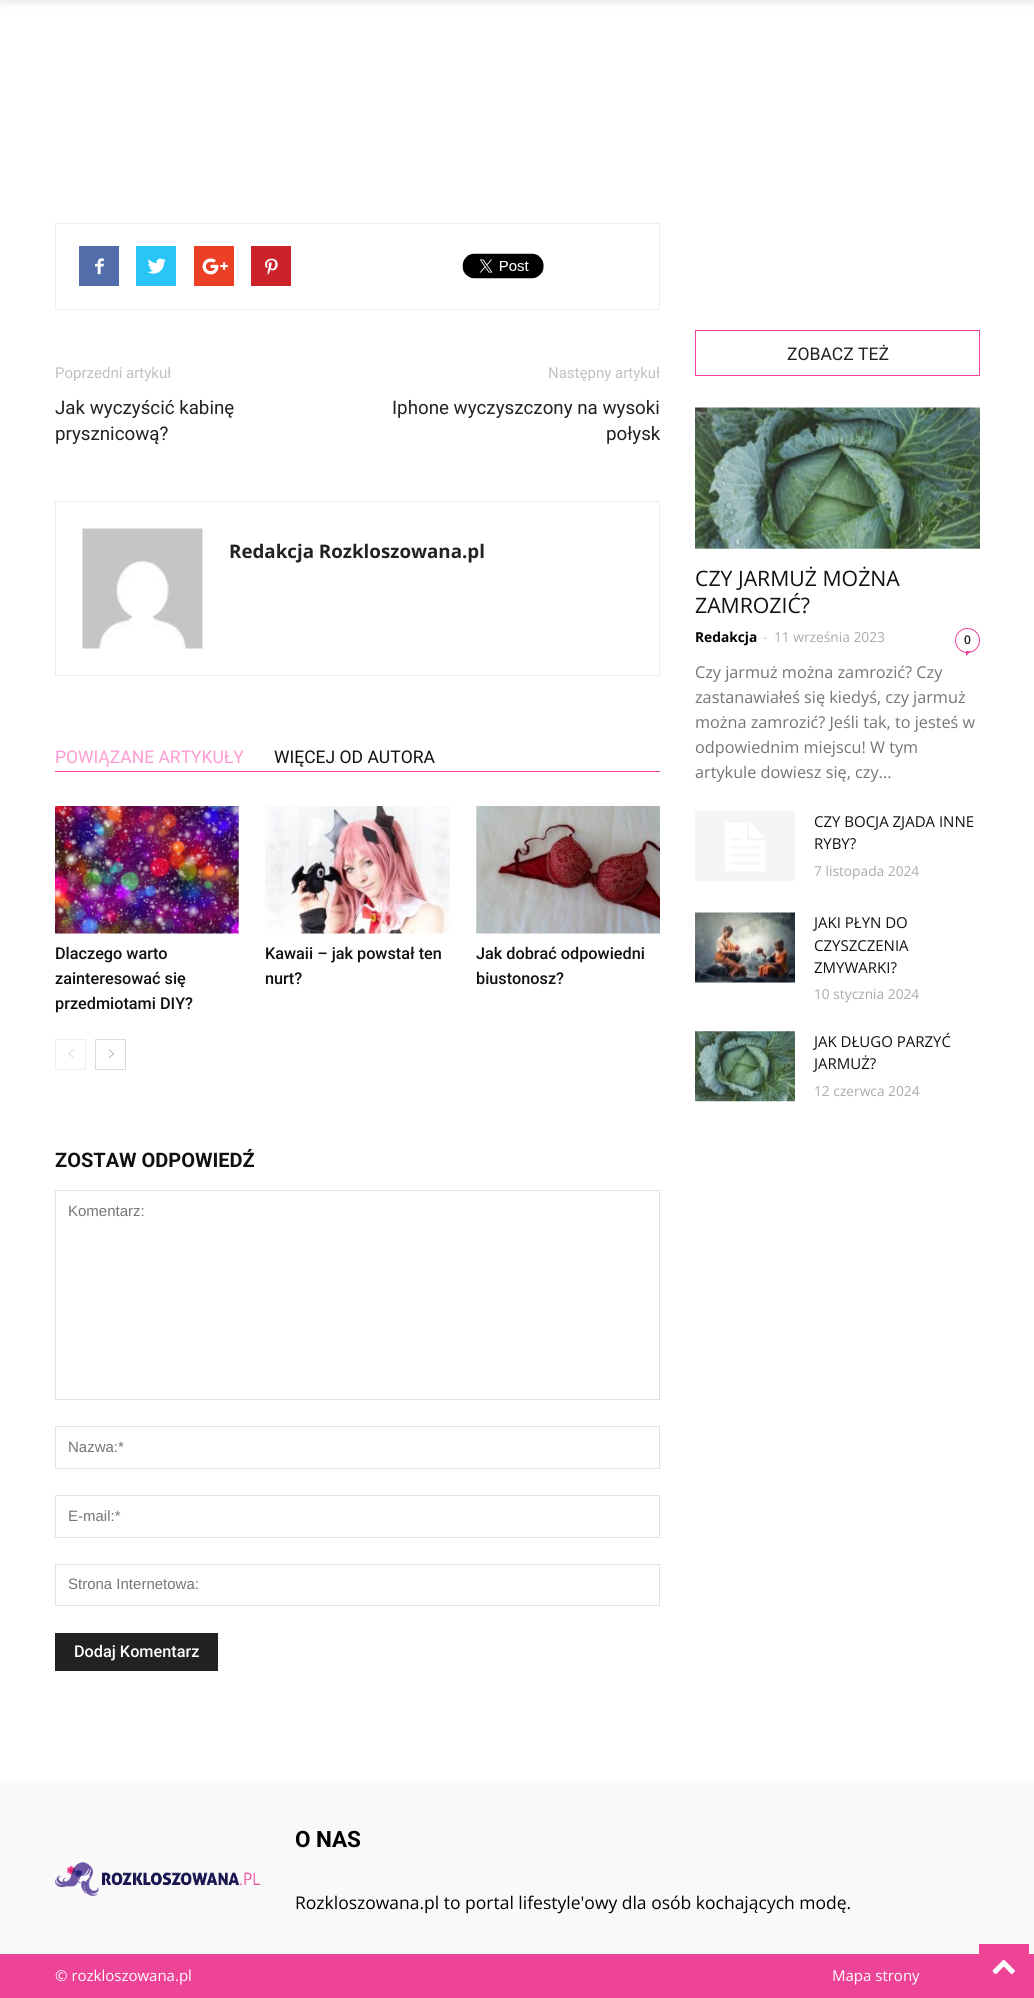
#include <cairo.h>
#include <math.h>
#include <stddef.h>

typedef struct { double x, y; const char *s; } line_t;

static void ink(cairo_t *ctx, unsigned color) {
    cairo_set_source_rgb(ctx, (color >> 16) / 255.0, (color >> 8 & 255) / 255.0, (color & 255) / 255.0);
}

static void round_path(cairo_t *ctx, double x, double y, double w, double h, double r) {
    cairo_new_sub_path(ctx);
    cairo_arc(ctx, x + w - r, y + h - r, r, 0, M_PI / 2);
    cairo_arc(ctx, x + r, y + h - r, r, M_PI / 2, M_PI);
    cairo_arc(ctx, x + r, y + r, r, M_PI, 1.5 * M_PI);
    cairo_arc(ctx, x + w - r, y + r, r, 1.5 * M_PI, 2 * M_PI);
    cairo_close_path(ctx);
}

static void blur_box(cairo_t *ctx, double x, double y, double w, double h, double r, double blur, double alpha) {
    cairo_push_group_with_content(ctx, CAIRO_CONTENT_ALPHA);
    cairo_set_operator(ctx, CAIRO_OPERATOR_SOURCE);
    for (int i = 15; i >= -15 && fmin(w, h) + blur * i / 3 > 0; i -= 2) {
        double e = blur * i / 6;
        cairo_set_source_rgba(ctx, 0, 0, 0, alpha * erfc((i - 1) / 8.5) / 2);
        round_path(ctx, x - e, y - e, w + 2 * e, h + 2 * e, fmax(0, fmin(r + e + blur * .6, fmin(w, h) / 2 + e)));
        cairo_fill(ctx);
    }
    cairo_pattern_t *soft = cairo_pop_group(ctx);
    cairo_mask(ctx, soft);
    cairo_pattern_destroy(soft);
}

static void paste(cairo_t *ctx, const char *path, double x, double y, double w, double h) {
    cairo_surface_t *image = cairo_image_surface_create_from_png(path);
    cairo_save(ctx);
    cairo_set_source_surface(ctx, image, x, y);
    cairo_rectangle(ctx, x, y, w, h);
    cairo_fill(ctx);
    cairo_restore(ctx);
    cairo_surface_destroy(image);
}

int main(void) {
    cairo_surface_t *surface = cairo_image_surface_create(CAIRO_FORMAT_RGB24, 1034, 1998);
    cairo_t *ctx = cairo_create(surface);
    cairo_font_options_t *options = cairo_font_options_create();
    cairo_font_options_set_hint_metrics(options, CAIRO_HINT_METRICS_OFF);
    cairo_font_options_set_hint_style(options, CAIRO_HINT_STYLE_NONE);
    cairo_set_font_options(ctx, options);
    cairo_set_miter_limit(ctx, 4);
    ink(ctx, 0xFFFFFF);
    cairo_paint(ctx);
    ink(ctx, 0xBEBEBE);
    blur_box(ctx, 0, -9, 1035, 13, 0, 3, 0.3);
    cairo_rectangle(ctx, 55.5, 223.5, 604, 86);
    ink(ctx, 0xEDEDED);
    cairo_set_line_width(ctx, 1);
    cairo_stroke(ctx);
    ink(ctx, 0x516EAB);
    cairo_rectangle(ctx, 79, 246, 40, 40);
    cairo_fill(ctx);
    paste(ctx, "media/1.png", 95, 258, 9, 17);
    ink(ctx, 0x29C5F6);
    cairo_rectangle(ctx, 136, 246, 40, 40);
    cairo_fill(ctx);
    paste(ctx, "media/2.png", 147, 258, 19, 16);
    ink(ctx, 0xEB4026);
    cairo_rectangle(ctx, 194, 246, 40, 40);
    cairo_fill(ctx);
    paste(ctx, "media/3.png", 202, 258, 26, 17);
    ink(ctx, 0xCA212A);
    cairo_rectangle(ctx, 251, 246, 40, 40);
    cairo_fill(ctx);
    paste(ctx, "media/4.png", 265, 258, 13, 17);
    paste(ctx, "media/5.png", 462, 253, 82, 26);
    cairo_select_font_face(ctx, "Roboto", CAIRO_FONT_SLANT_NORMAL, CAIRO_FONT_WEIGHT_NORMAL);
    cairo_set_font_size(ctx, 15);
    ink(ctx, 0xC1C1C1);
    cairo_move_to(ctx, 55, 378);
    cairo_show_text(ctx, "Poprzedni artykuł");
    cairo_set_font_size(ctx, 18.75);
    ink(ctx, 0x222222);
    cairo_move_to(ctx, 55, 414);
    cairo_show_text(ctx, "Jak wyczyścić kabinę");
    cairo_move_to(ctx, 55, 440);
    cairo_show_text(ctx, "prysznicową?");
    cairo_set_font_size(ctx, 15);
    ink(ctx, 0xC1C1C1);
    cairo_move_to(ctx, 548, 378);
    cairo_show_text(ctx, "Następny artykuł");
    cairo_set_font_size(ctx, 18.75);
    ink(ctx, 0x222222);
    cairo_move_to(ctx, 392, 414);
    cairo_show_text(ctx, "Iphone wyczyszczony na wysoki");
    cairo_move_to(ctx, 606, 440);
    cairo_show_text(ctx, "połysk");
    cairo_rectangle(ctx, 55.5, 501.5, 604, 174);
    ink(ctx, 0xEDEDED);
    cairo_stroke(ctx);
    paste(ctx, "media/6.png", 82, 528, 121, 121);
    cairo_select_font_face(ctx, "Open Sans", CAIRO_FONT_SLANT_NORMAL, CAIRO_FONT_WEIGHT_BOLD);
    ink(ctx, 0x222222);
    cairo_move_to(ctx, 229, 558);
    cairo_show_text(ctx, "Redakcja Rozkloszowana.pl");
    ink(ctx, 0xEE4498);
    cairo_rectangle(ctx, 55, 771, 605, 1);
    cairo_fill(ctx);
    cairo_select_font_face(ctx, "Roboto", CAIRO_FONT_SLANT_NORMAL, CAIRO_FONT_WEIGHT_NORMAL);
    cairo_set_font_size(ctx, 17.5);
    ink(ctx, 0xFF9BD2);
    cairo_move_to(ctx, 55, 763);
    cairo_show_text(ctx, "POWIĄZANE ARTYKUŁY");
    ink(ctx, 0x111111);
    cairo_move_to(ctx, 274, 763);
    cairo_show_text(ctx, "WIĘCEJ OD AUTORA");
    paste(ctx, "media/7.png", 55, 806, 184, 128);
    cairo_select_font_face(ctx, "Roboto Medium", CAIRO_FONT_SLANT_NORMAL, CAIRO_FONT_WEIGHT_NORMAL);
    cairo_set_font_size(ctx, 16.25);
    {
        static const line_t items[] = {
            {55, 959, "Dlaczego warto"},
            {55, 984, "zainteresować się"},
            {55, 1009, "przedmiotami DIY?"},
        };
        for (size_t i = 0; i < sizeof items / sizeof *items; i++) {
            cairo_move_to(ctx, items[i].x, items[i].y);
            cairo_show_text(ctx, items[i].s);
        }
    }
    paste(ctx, "media/8.png", 265, 806, 185, 128);
    cairo_move_to(ctx, 265, 959);
    cairo_show_text(ctx, "Kawaii – jak powstał ten");
    cairo_move_to(ctx, 265, 984);
    cairo_show_text(ctx, "nurt?");
    paste(ctx, "media/9.png", 476, 806, 184, 128);
    cairo_move_to(ctx, 476, 959);
    cairo_show_text(ctx, "Jak dobrać odpowiedni");
    cairo_move_to(ctx, 476, 984);
    cairo_show_text(ctx, "biustonosz?");
    cairo_rectangle(ctx, 55.5, 1039.5, 30, 30);
    ink(ctx, 0xEEEEEE);
    cairo_stroke(ctx);
    paste(ctx, "media/10.png", 68, 1049, 6, 9);
    cairo_rectangle(ctx, 95.5, 1039.5, 30, 30);
    ink(ctx, 0xDCDCDC);
    cairo_stroke(ctx);
    paste(ctx, "media/11.png", 108, 1049, 7, 9);
    cairo_select_font_face(ctx, "Roboto", CAIRO_FONT_SLANT_NORMAL, CAIRO_FONT_WEIGHT_BOLD);
    cairo_set_font_size(ctx, 20);
    ink(ctx, 0x111111);
    cairo_move_to(ctx, 55, 1167);
    cairo_show_text(ctx, "ZOSTAW ODPOWIEDŹ");
    cairo_rectangle(ctx, 55.5, 1190.5, 604, 209);
    ink(ctx, 0xE1E1E1);
    cairo_stroke(ctx);
    cairo_select_font_face(ctx, "Liberation Sans", CAIRO_FONT_SLANT_NORMAL, CAIRO_FONT_WEIGHT_NORMAL);
    cairo_set_font_size(ctx, 15);
    ink(ctx, 0x757575);
    cairo_move_to(ctx, 68, 1216);
    cairo_show_text(ctx, "Komentarz:");
    cairo_rectangle(ctx, 55.5, 1426.5, 604, 42);
    ink(ctx, 0xE1E1E1);
    cairo_stroke(ctx);
    ink(ctx, 0x757575);
    cairo_move_to(ctx, 68, 1452);
    cairo_show_text(ctx, "Nazwa:*");
    cairo_rectangle(ctx, 55.5, 1495.5, 604, 42);
    ink(ctx, 0xE1E1E1);
    cairo_stroke(ctx);
    ink(ctx, 0x757575);
    cairo_move_to(ctx, 68, 1521);
    cairo_show_text(ctx, "E-mail:*");
    cairo_rectangle(ctx, 55.5, 1564.5, 604, 41);
    ink(ctx, 0xE1E1E1);
    cairo_stroke(ctx);
    ink(ctx, 0x757575);
    cairo_move_to(ctx, 68, 1589);
    cairo_show_text(ctx, "Strona Internetowa:");
    ink(ctx, 0x222222);
    cairo_rectangle(ctx, 55, 1633, 163, 38);
    cairo_fill(ctx);
    cairo_select_font_face(ctx, "Roboto Medium", CAIRO_FONT_SLANT_NORMAL, CAIRO_FONT_WEIGHT_NORMAL);
    cairo_set_font_size(ctx, 16.25);
    ink(ctx, 0xFFFFFF);
    cairo_move_to(ctx, 74, 1657);
    cairo_show_text(ctx, "Dodaj Komentarz");
    cairo_rectangle(ctx, 695.5, 330.5, 284, 45);
    ink(ctx, 0xEE4498);
    cairo_stroke(ctx);
    cairo_select_font_face(ctx, "Roboto", CAIRO_FONT_SLANT_NORMAL, CAIRO_FONT_WEIGHT_NORMAL);
    cairo_set_font_size(ctx, 17.5);
    ink(ctx, 0x222222);
    cairo_move_to(ctx, 787, 360);
    cairo_show_text(ctx, "ZOBACZ TEŻ");
    paste(ctx, "media/12.png", 695, 407, 285, 142);
    cairo_select_font_face(ctx, "Open Sans", CAIRO_FONT_SLANT_NORMAL, CAIRO_FONT_WEIGHT_NORMAL);
    cairo_set_font_size(ctx, 21.25);
    ink(ctx, 0x111111);
    cairo_move_to(ctx, 695, 586);
    cairo_show_text(ctx, "CZY JARMUŻ MOŻNA");
    cairo_move_to(ctx, 695, 613);
    cairo_show_text(ctx, "ZAMROZIĆ?");
    cairo_select_font_face(ctx, "Open Sans", CAIRO_FONT_SLANT_NORMAL, CAIRO_FONT_WEIGHT_BOLD);
    cairo_set_font_size(ctx, 13.75);
    ink(ctx, 0x000000);
    cairo_move_to(ctx, 695, 642);
    cairo_show_text(ctx, "Redakcja");
    cairo_select_font_face(ctx, "Open Sans", CAIRO_FONT_SLANT_NORMAL, CAIRO_FONT_WEIGHT_NORMAL);
    ink(ctx, 0xCCCCCC);
    cairo_move_to(ctx, 763, 642);
    cairo_show_text(ctx, "-");
    ink(ctx, 0xAAAAAA);
    cairo_move_to(ctx, 774, 642);
    cairo_show_text(ctx, "11 września 2023");
    cairo_new_path(ctx);
    cairo_arc(ctx, 967.5, 640.5, 12, 0, 2 * M_PI);
    ink(ctx, 0xEE4498);
    cairo_stroke(ctx);
    cairo_select_font_face(ctx, "Open Sans SemiBold", CAIRO_FONT_SLANT_NORMAL, CAIRO_FONT_WEIGHT_NORMAL);
    cairo_set_font_size(ctx, 12);
    ink(ctx, 0x222222);
    cairo_move_to(ctx, 964, 644);
    cairo_show_text(ctx, "0");
    ink(ctx, 0xEE4498);
    cairo_new_path(ctx);
    cairo_move_to(ctx, 966, 651);
    cairo_line_to(ctx, 971, 651);
    cairo_line_to(ctx, 966, 656);
    cairo_close_path(ctx);
    cairo_fill(ctx);
    cairo_select_font_face(ctx, "Open Sans", CAIRO_FONT_SLANT_NORMAL, CAIRO_FONT_WEIGHT_NORMAL);
    cairo_set_font_size(ctx, 16.25);
    ink(ctx, 0x757575);
    {
        static const line_t items[] = {
            {695, 678, "Czy jarmuż można zamrozić? Czy"},
            {695, 703, "zastanawiałeś się kiedyś, czy jarmuż"},
            {695, 728, "można zamrozić? Jeśli tak, to jesteś w"},
            {695, 753, "odpowiednim miejscu! W tym"},
            {695, 778, "artykule dowiesz się, czy..."},
        };
        for (size_t i = 0; i < sizeof items / sizeof *items; i++) {
            cairo_move_to(ctx, items[i].x, items[i].y);
            cairo_show_text(ctx, items[i].s);
        }
    }
    paste(ctx, "media/13.png", 695, 811, 100, 70);
    cairo_set_font_size(ctx, 15);
    ink(ctx, 0x111111);
    cairo_move_to(ctx, 814, 827);
    cairo_show_text(ctx, "CZY BOCJA ZJADA INNE");
    cairo_move_to(ctx, 814, 849);
    cairo_show_text(ctx, "RYBY?");
    cairo_set_font_size(ctx, 13.75);
    ink(ctx, 0xAAAAAA);
    cairo_move_to(ctx, 814, 876);
    cairo_show_text(ctx, "7 listopada 2024");
    paste(ctx, "media/14.png", 695, 912, 100, 71);
    cairo_set_font_size(ctx, 15);
    ink(ctx, 0x111111);
    {
        static const line_t items[] = {
            {814, 928, "JAKI PŁYN DO"},
            {814, 951, "CZYSZCZENIA"},
            {814, 973, "ZMYWARKI?"},
        };
        for (size_t i = 0; i < sizeof items / sizeof *items; i++) {
            cairo_move_to(ctx, items[i].x, items[i].y);
            cairo_show_text(ctx, items[i].s);
        }
    }
    cairo_set_font_size(ctx, 13.75);
    ink(ctx, 0xAAAAAA);
    cairo_move_to(ctx, 814, 999);
    cairo_show_text(ctx, "10 stycznia 2024");
    paste(ctx, "media/15.png", 695, 1031, 100, 71);
    cairo_set_font_size(ctx, 15);
    ink(ctx, 0x111111);
    cairo_move_to(ctx, 814, 1047);
    cairo_show_text(ctx, "JAK DŁUGO PARZYĆ");
    cairo_move_to(ctx, 814, 1069);
    cairo_show_text(ctx, "JARMUŻ?");
    cairo_set_font_size(ctx, 13.75);
    ink(ctx, 0xAAAAAA);
    cairo_move_to(ctx, 814, 1096);
    cairo_show_text(ctx, "12 czerwca 2024");
    ink(ctx, 0xF9F9F9);
    cairo_rectangle(ctx, 0, 1781, 1034, 173);
    cairo_fill(ctx);
    paste(ctx, "media/16.png", 55, 1862, 205, 34);
    cairo_select_font_face(ctx, "Roboto", CAIRO_FONT_SLANT_NORMAL, CAIRO_FONT_WEIGHT_BOLD);
    cairo_set_font_size(ctx, 22.5);
    ink(ctx, 0x000000);
    cairo_move_to(ctx, 295, 1847);
    cairo_show_text(ctx, "O NAS");
    cairo_select_font_face(ctx, "Open Sans", CAIRO_FONT_SLANT_NORMAL, CAIRO_FONT_WEIGHT_NORMAL);
    cairo_set_font_size(ctx, 17.5);
    cairo_move_to(ctx, 295, 1909);
    cairo_show_text(ctx, "Rozkloszowana.pl to portal lifestyle'owy dla osób kochających modę.");
    ink(ctx, 0xEE4498);
    cairo_rectangle(ctx, 0, 1954, 1034, 44);
    cairo_fill(ctx);
    cairo_set_font_size(ctx, 15);
    ink(ctx, 0xFFFFFF);
    cairo_move_to(ctx, 55, 1981);
    cairo_show_text(ctx, "© rozkloszowana.pl");
    cairo_move_to(ctx, 832, 1981);
    cairo_show_text(ctx, "Mapa strony");
    ink(ctx, 0xEE4498);
    cairo_rectangle(ctx, 979, 1944, 50, 10);
    cairo_fill(ctx);
    paste(ctx, "media/17.png", 992, 1959, 23, 16);
    cairo_surface_write_to_png(surface, "image.png");
    cairo_font_options_destroy(options);
    cairo_destroy(ctx);
    cairo_surface_destroy(surface);
    return 0;
}
